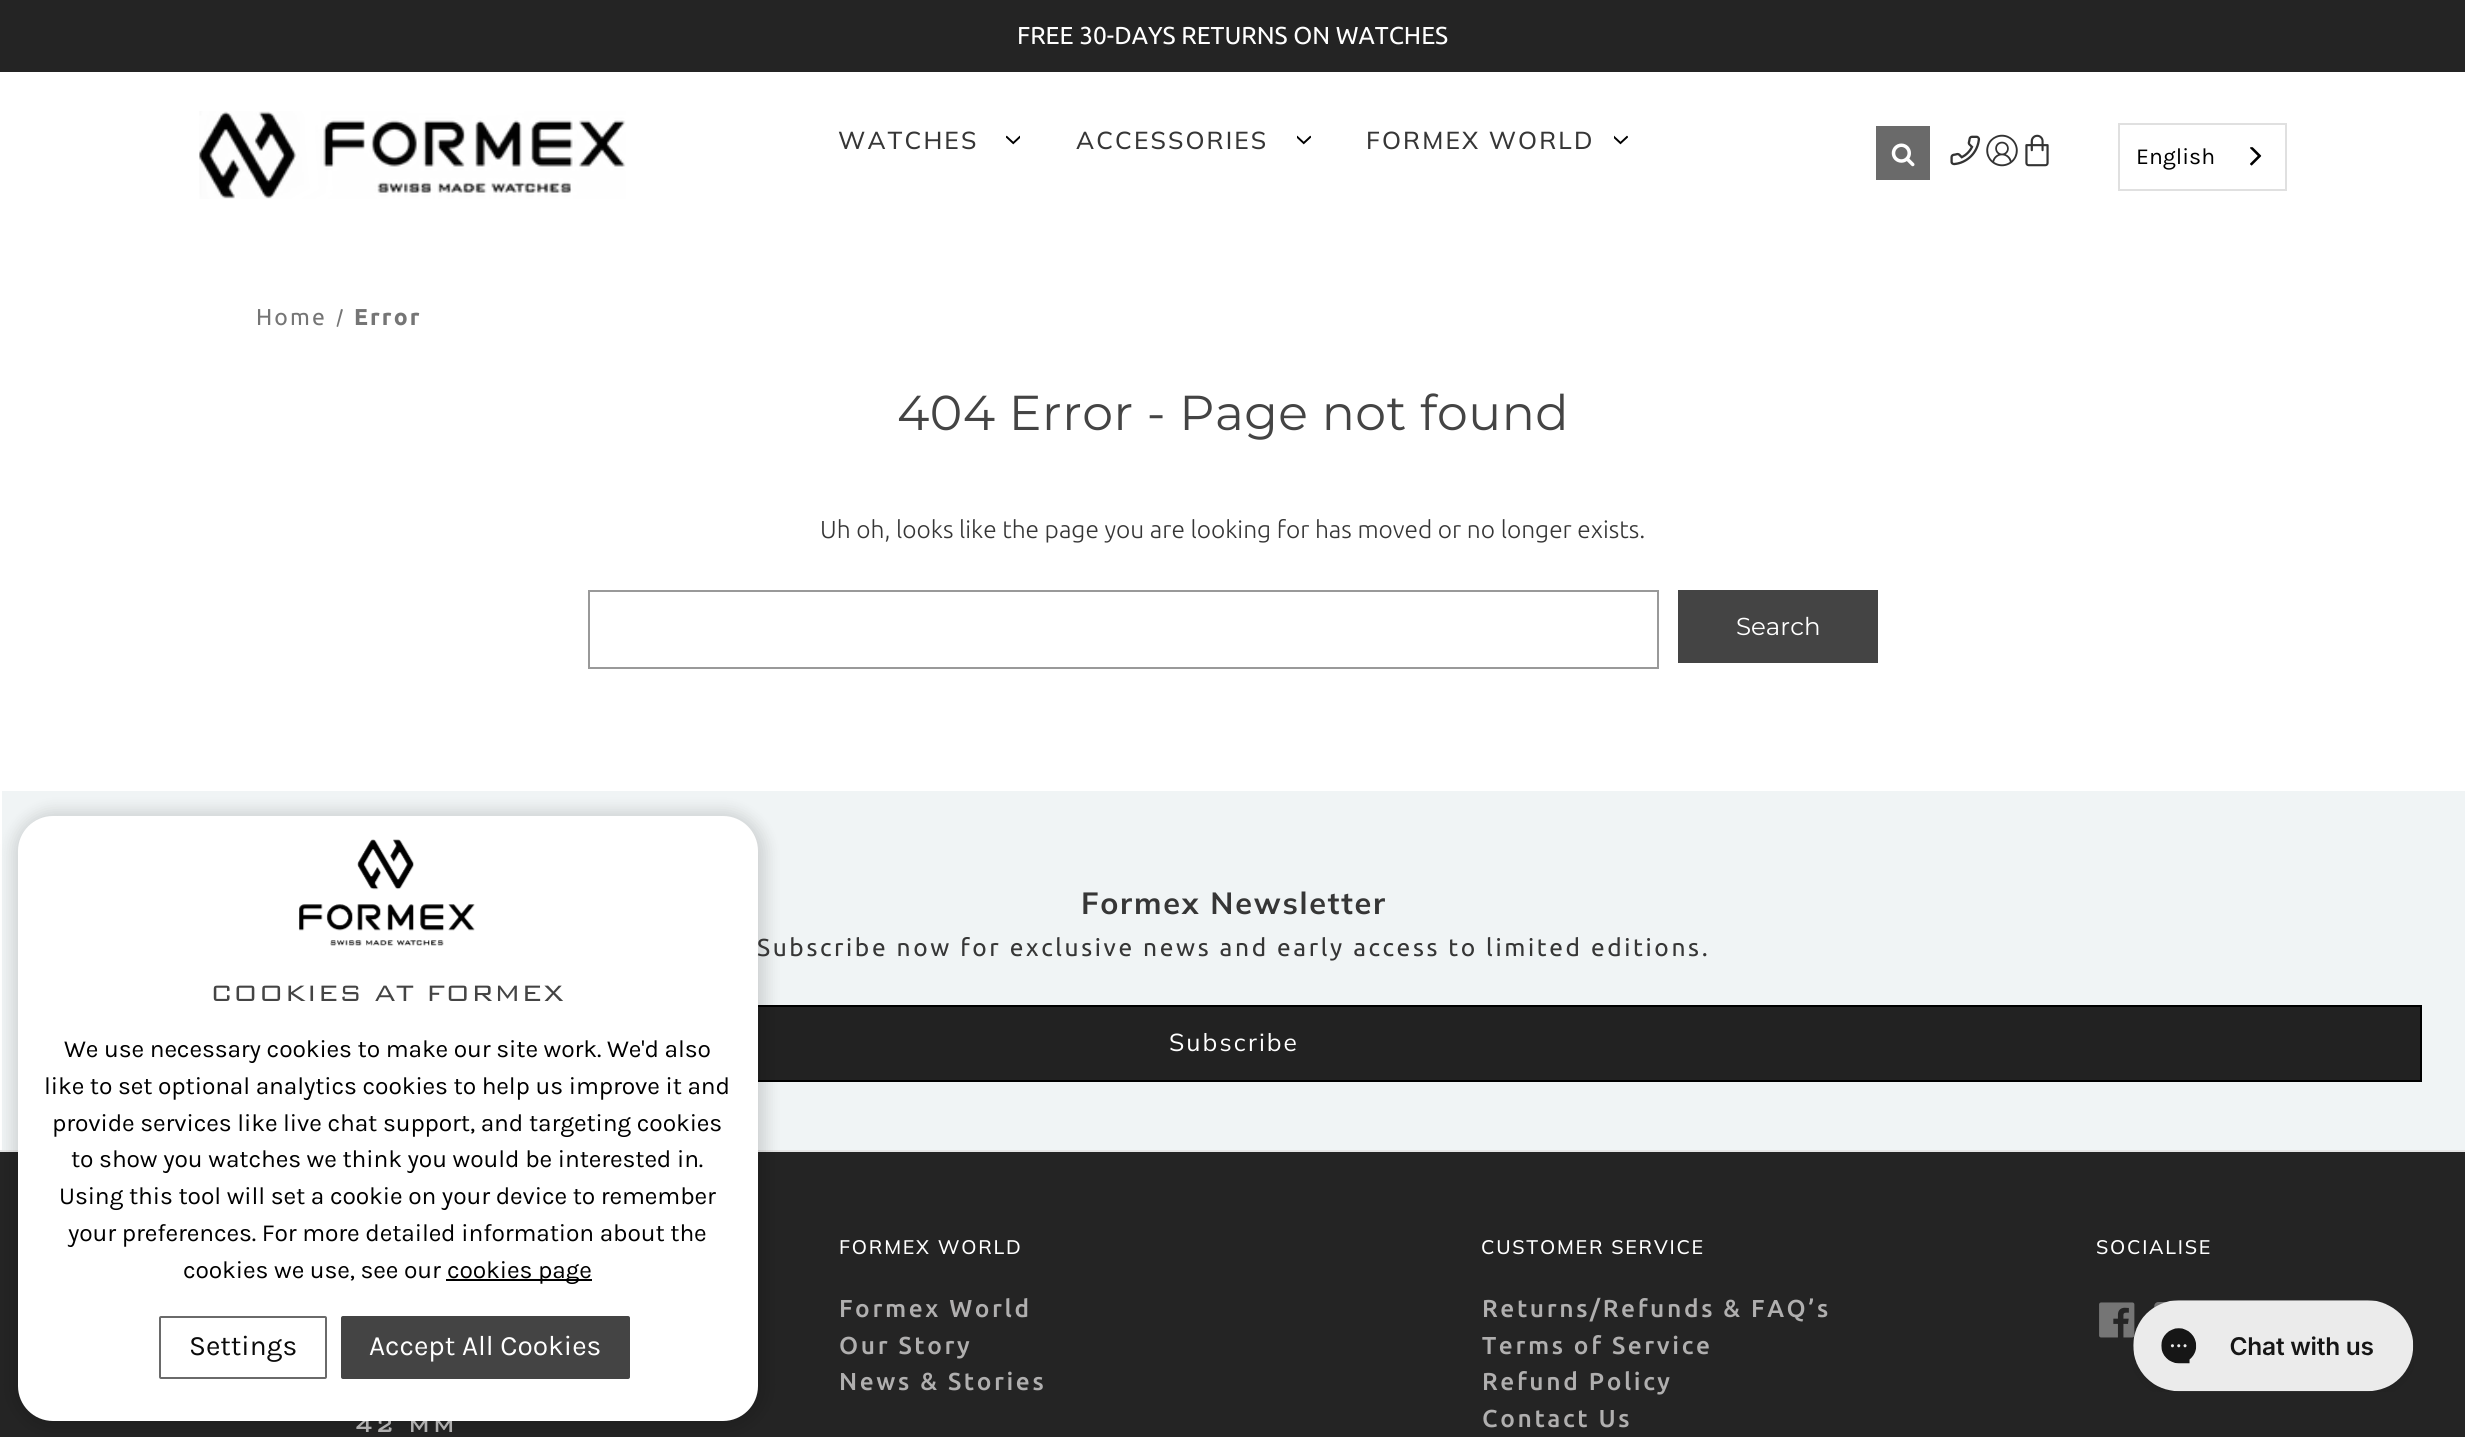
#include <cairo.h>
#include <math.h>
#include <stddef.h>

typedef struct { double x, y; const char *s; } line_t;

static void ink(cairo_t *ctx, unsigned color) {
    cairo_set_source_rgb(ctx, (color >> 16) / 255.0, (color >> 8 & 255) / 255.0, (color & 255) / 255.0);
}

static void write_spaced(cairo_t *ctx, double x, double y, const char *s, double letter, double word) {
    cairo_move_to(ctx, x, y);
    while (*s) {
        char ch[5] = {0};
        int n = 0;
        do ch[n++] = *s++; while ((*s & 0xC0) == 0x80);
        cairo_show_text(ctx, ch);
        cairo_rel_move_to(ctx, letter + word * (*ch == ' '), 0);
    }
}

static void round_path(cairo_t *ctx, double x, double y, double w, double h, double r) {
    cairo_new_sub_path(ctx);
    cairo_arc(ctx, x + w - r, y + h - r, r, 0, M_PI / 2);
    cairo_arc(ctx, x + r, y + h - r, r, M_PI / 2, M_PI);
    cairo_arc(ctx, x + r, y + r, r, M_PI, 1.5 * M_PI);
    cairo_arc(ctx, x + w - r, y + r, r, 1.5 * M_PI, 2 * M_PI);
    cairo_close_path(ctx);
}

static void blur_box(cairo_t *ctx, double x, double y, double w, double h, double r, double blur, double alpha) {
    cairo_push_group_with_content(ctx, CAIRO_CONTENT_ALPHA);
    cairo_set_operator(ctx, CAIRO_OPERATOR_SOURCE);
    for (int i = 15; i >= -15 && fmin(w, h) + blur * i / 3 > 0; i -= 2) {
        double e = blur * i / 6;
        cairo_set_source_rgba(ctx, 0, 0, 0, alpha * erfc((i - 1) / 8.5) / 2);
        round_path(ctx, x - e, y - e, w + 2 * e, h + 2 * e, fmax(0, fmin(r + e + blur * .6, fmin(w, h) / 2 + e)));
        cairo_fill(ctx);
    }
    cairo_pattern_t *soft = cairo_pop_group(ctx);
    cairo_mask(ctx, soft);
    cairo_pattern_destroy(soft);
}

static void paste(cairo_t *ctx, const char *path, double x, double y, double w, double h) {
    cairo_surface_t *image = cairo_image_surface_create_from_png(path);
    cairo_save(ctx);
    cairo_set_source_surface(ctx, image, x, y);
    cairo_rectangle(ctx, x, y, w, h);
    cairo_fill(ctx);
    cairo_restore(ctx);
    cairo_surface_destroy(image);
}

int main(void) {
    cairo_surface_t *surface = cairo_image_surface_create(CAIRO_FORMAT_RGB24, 2465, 1437);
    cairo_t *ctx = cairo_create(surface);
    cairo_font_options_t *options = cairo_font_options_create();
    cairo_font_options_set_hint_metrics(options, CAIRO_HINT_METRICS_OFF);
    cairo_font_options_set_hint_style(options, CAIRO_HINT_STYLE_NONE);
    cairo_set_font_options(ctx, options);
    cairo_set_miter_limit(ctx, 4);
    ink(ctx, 0xFFFFFF);
    cairo_paint(ctx);
    ink(ctx, 0x242424);
    cairo_rectangle(ctx, 0, 0, 2465, 72);
    cairo_fill(ctx);
    cairo_select_font_face(ctx, "Ubuntu", CAIRO_FONT_SLANT_NORMAL, CAIRO_FONT_WEIGHT_NORMAL);
    cairo_set_font_size(ctx, 24.5);
    ink(ctx, 0xFFFFFF);
    cairo_move_to(ctx, 1017, 44);
    cairo_show_text(ctx, "FREE 30-DAYS RETURNS ON WATCHES");
    paste(ctx, "media/1.png", 199, 111, 427, 88);
    cairo_select_font_face(ctx, "Mulish Medium", CAIRO_FONT_SLANT_NORMAL, CAIRO_FONT_WEIGHT_NORMAL);
    ink(ctx, 0x363636);
    write_spaced(ctx, 838, 149, "WATCHES", 2.1, 0);
    paste(ctx, "media/2.png", 1006, 135, 14, 10);
    write_spaced(ctx, 1076, 149, "ACCESSORIES", 2.1, 0);
    paste(ctx, "media/3.png", 1297, 135, 14, 10);
    write_spaced(ctx, 1366, 149, "FORMEX WORLD", 2.1, 0);
    paste(ctx, "media/4.png", 1614, 135, 14, 10);
    ink(ctx, 0x6A6A6A);
    cairo_rectangle(ctx, 1876, 126, 54, 54);
    cairo_fill(ctx);
    paste(ctx, "media/5.png", 1891, 143, 24, 24);
    paste(ctx, "media/6.png", 1950, 135, 31, 31);
    paste(ctx, "media/7.png", 1986, 134, 32, 33);
    paste(ctx, "media/8.png", 2025, 134, 24, 33);
    cairo_rectangle(ctx, 2119, 124, 167, 66);
    ink(ctx, 0xE0E0E0);
    cairo_stroke(ctx);
    cairo_select_font_face(ctx, "Karla", CAIRO_FONT_SLANT_NORMAL, CAIRO_FONT_WEIGHT_NORMAL);
    cairo_set_font_size(ctx, 23);
    ink(ctx, 0x000000);
    cairo_move_to(ctx, 2136, 164);
    cairo_show_text(ctx, "English");
    paste(ctx, "media/9.png", 2250, 147, 12, 19);
    cairo_select_font_face(ctx, "Ubuntu", CAIRO_FONT_SLANT_NORMAL, CAIRO_FONT_WEIGHT_NORMAL);
    ink(ctx, 0x757575);
    write_spaced(ctx, 256, 325, "Home", 2.1, 0);
    cairo_new_path(ctx);
    cairo_move_to(ctx, 341, 309);
    cairo_line_to(ctx, 343, 309.5);
    cairo_line_to(ctx, 338, 327);
    cairo_line_to(ctx, 336.5, 326.5);
    cairo_close_path(ctx);
    cairo_fill(ctx);
    cairo_select_font_face(ctx, "Ubuntu", CAIRO_FONT_SLANT_NORMAL, CAIRO_FONT_WEIGHT_BOLD);
    write_spaced(ctx, 354, 325, "Error", 2.1, 0);
    cairo_select_font_face(ctx, "Montserrat", CAIRO_FONT_SLANT_NORMAL, CAIRO_FONT_WEIGHT_NORMAL);
    cairo_set_font_size(ctx, 49);
    ink(ctx, 0x444444);
    write_spaced(ctx, 897, 430, "404 Error - Page not found", 0.45, 0);
    cairo_select_font_face(ctx, "Ubuntu Light", CAIRO_FONT_SLANT_NORMAL, CAIRO_FONT_WEIGHT_NORMAL);
    cairo_set_font_size(ctx, 24.5);
    ink(ctx, 0x363636);
    cairo_move_to(ctx, 820, 538);
    cairo_show_text(ctx, "Uh oh, looks like the page you are looking for has moved or no longer exists.");
    cairo_rectangle(ctx, 589, 591, 1069, 77);
    ink(ctx, 0x999999);
    cairo_stroke(ctx);
    ink(ctx, 0x444444);
    cairo_rectangle(ctx, 1678, 590, 200, 73);
    cairo_fill(ctx);
    cairo_select_font_face(ctx, "Montserrat", CAIRO_FONT_SLANT_NORMAL, CAIRO_FONT_WEIGHT_NORMAL);
    ink(ctx, 0xFFFFFF);
    cairo_move_to(ctx, 1736, 635);
    cairo_show_text(ctx, "Search");
    ink(ctx, 0xF0F4F5);
    cairo_rectangle(ctx, 2, 791, 2463, 359);
    cairo_fill(ctx);
    ink(ctx, 0x222222);
    cairo_rectangle(ctx, 758, 1007, 1662, 73);
    cairo_fill(ctx);
    cairo_rectangle(ctx, 47, 1006, 2374, 75);
    ink(ctx, 0x000000);
    cairo_stroke(ctx);
    ink(ctx, 0x242424);
    cairo_rectangle(ctx, 0, 1152, 2465, 285);
    cairo_fill(ctx);
    ink(ctx, 0xE5E5E5);
    cairo_rectangle(ctx, 0, 1150, 2465, 2);
    cairo_fill(ctx);
    ink(ctx, 0x000000);
    blur_box(ctx, 12, 810, 755, 620, 42, 7, 0.13);
    cairo_select_font_face(ctx, "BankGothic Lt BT", CAIRO_FONT_SLANT_NORMAL, CAIRO_FONT_WEIGHT_BOLD);
    ink(ctx, 0xB0AFAF);
    write_spaced(ctx, 354, 1432, "42 MM", 2.62, 0);
    ink(ctx, 0xFFFFFF);
    round_path(ctx, 18, 816, 740, 605, 35);
    cairo_fill(ctx);
    paste(ctx, "media/10.png", 299, 839, 176, 107);
    cairo_select_font_face(ctx, "BankGothic Lt BT Light", CAIRO_FONT_SLANT_NORMAL, CAIRO_FONT_WEIGHT_NORMAL);
    cairo_set_font_size(ctx, 29.75);
    ink(ctx, 0x444444);
    write_spaced(ctx, 210, 1001, "COOKIES AT FORMEX", 0.45, 0);
    cairo_select_font_face(ctx, "Karla", CAIRO_FONT_SLANT_NORMAL, CAIRO_FONT_WEIGHT_NORMAL);
    cairo_set_font_size(ctx, 24.5);
    ink(ctx, 0x000000);
    {
        static const line_t items[] = {
            {64, 1057, "We use necessary cookies to make our site work. We'd also"},
            {44, 1094, "like to set optional analytics cookies to help us improve it and"},
            {52, 1131, "provide services like live chat support, and targeting cookies"},
            {71, 1167, "to show you watches we think you would be interested in."},
            {59, 1204, "Using this tool will set a cookie on your device to remember"},
            {68, 1241, "your preferences. For more detailed information about the"},
            {183, 1278, "cookies we use, see our"},
        };
        for (size_t i = 0; i < sizeof items / sizeof *items; i++) {
            write_spaced(ctx, items[i].x, items[i].y, items[i].s, -0.1, 0);
        }
    }
    cairo_rectangle(ctx, 446, 1279, 146, 2);
    cairo_fill(ctx);
    write_spaced(ctx, 447, 1278, "cookies page", -0.1, 0);
    round_path(ctx, 160, 1317, 166, 61, 1);
    ink(ctx, 0x6A6A6A);
    cairo_stroke(ctx);
    cairo_set_font_size(ctx, 28);
    ink(ctx, 0x0A0A0A);
    cairo_move_to(ctx, 189, 1355);
    cairo_show_text(ctx, "Settings");
    ink(ctx, 0x444444);
    round_path(ctx, 341, 1316, 289, 63, 2);
    cairo_fill(ctx);
    ink(ctx, 0xFFFFFF);
    cairo_move_to(ctx, 369, 1355);
    cairo_show_text(ctx, "Accept All Cookies");
    cairo_select_font_face(ctx, "Mulish", CAIRO_FONT_SLANT_NORMAL, CAIRO_FONT_WEIGHT_BOLD);
    cairo_set_font_size(ctx, 30.6);
    ink(ctx, 0x363636);
    write_spaced(ctx, 1081, 914, "Formex Newsletter", 1.75, 0);
    cairo_select_font_face(ctx, "Ubuntu", CAIRO_FONT_SLANT_NORMAL, CAIRO_FONT_WEIGHT_NORMAL);
    cairo_set_font_size(ctx, 24.5);
    write_spaced(ctx, 757, 956, "Subscribe now for exclusive news and early access to limited editions.", 2.62, 0);
    cairo_select_font_face(ctx, "Mulish", CAIRO_FONT_SLANT_NORMAL, CAIRO_FONT_WEIGHT_NORMAL);
    ink(ctx, 0xFFFFFF);
    write_spaced(ctx, 1169, 1051, "Subscribe", 2.1, 0);
    cairo_select_font_face(ctx, "Mulish Medium", CAIRO_FONT_SLANT_NORMAL, CAIRO_FONT_WEIGHT_NORMAL);
    cairo_set_font_size(ctx, 19.6);
    write_spaced(ctx, 2096, 1254, "SOCIALISE", 1.75, 0);
    ink(ctx, 0x242424);
    cairo_rectangle(ctx, 2096, 1243, 1, 10);
    cairo_fill(ctx);
    ink(ctx, 0xFFFFFF);
    write_spaced(ctx, 839, 1254, "FORMEX WORLD", 1.75, 0);
    cairo_select_font_face(ctx, "Ubuntu Medium", CAIRO_FONT_SLANT_NORMAL, CAIRO_FONT_WEIGHT_NORMAL);
    cairo_set_font_size(ctx, 24.5);
    ink(ctx, 0xB0AFAF);
    {
        static const line_t items[] = {
            {839, 1317, "Formex World"},
            {839, 1354, "Our Story"},
            {839, 1390, "News & Stories"},
        };
        for (size_t i = 0; i < sizeof items / sizeof *items; i++) {
            write_spaced(ctx, items[i].x, items[i].y, items[i].s, 2.62, 0);
        }
    }
    cairo_select_font_face(ctx, "Mulish Medium", CAIRO_FONT_SLANT_NORMAL, CAIRO_FONT_WEIGHT_NORMAL);
    cairo_set_font_size(ctx, 19.6);
    ink(ctx, 0xFFFFFF);
    write_spaced(ctx, 1481, 1254, "CUSTOMER SERVICE", 1.75, 0);
    cairo_select_font_face(ctx, "Ubuntu Medium", CAIRO_FONT_SLANT_NORMAL, CAIRO_FONT_WEIGHT_NORMAL);
    cairo_set_font_size(ctx, 24.5);
    ink(ctx, 0xB0AFAF);
    {
        static const line_t items[] = {
            {1482, 1317, "Returns/Refunds & FAQ’s"},
            {1482, 1354, "Terms of Service"},
            {1482, 1390, "Refund Policy"},
            {1482, 1427, "Contact Us"},
        };
        for (size_t i = 0; i < sizeof items / sizeof *items; i++) {
            write_spaced(ctx, items[i].x, items[i].y, items[i].s, 2.62, 0);
        }
    }
    paste(ctx, "media/11.png", 2099, 1302, 36, 36);
    paste(ctx, "media/12.png", 2154, 1302, 13, 6);
    paste(ctx, "media/13.png", 2132, 1300, 282, 92);
    cairo_surface_write_to_png(surface, "image.png");
    cairo_font_options_destroy(options);
    cairo_destroy(ctx);
    cairo_surface_destroy(surface);
    return 0;
}
